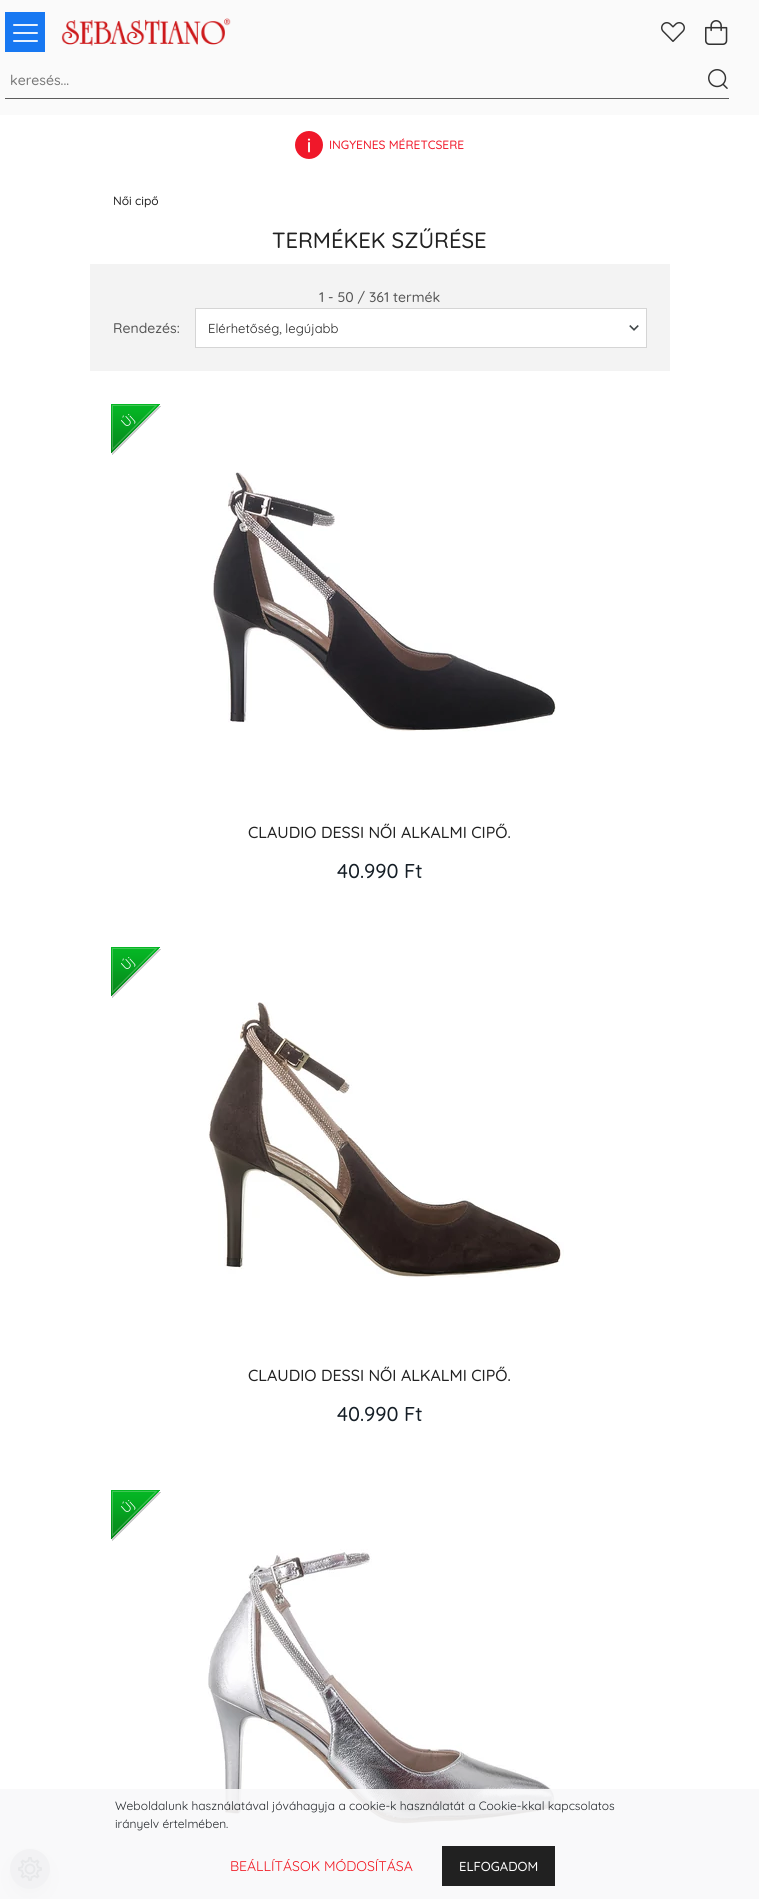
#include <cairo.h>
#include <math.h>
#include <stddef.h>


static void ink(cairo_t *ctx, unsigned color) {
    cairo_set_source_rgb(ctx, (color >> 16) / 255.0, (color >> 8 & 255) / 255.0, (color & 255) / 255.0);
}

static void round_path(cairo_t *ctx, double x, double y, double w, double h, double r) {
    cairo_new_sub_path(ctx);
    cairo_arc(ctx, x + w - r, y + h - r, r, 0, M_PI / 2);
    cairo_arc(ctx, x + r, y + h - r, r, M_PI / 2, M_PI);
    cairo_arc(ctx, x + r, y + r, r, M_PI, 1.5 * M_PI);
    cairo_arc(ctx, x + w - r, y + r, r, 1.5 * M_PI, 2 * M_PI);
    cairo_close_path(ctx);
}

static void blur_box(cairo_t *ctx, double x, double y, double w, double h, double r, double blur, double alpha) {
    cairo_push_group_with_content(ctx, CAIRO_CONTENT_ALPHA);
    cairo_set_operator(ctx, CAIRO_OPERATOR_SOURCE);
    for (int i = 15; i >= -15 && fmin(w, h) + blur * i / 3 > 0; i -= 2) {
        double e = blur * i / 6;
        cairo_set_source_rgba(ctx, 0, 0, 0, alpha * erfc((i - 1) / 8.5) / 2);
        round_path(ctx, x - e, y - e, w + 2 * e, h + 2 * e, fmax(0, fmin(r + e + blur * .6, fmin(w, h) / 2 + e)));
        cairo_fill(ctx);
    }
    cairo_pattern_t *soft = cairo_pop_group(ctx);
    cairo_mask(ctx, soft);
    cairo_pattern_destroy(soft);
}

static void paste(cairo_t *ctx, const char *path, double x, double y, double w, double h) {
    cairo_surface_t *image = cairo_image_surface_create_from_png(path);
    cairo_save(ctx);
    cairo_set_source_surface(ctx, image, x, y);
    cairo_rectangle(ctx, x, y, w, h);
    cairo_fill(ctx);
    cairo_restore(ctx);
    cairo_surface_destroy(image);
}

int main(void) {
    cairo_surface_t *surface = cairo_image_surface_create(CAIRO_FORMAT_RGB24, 759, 1899);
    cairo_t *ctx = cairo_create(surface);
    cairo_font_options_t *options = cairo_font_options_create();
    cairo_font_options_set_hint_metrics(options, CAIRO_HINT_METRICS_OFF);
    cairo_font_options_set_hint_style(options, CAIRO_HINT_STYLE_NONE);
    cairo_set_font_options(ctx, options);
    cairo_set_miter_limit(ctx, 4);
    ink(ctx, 0xFFFFFF);
    cairo_paint(ctx);
    ink(ctx, 0xFAFAFA);
    cairo_rectangle(ctx, 0, 0, 759, 115);
    cairo_fill(ctx);
    ink(ctx, 0x1778F2);
    cairo_rectangle(ctx, 5, 12, 40, 40);
    cairo_fill(ctx);
    ink(ctx, 0xE8F2FE);
    round_path(ctx, 13, 24, 25, 2, 1);
    cairo_fill(ctx);
    round_path(ctx, 13, 32, 25, 2, 1);
    cairo_fill(ctx);
    round_path(ctx, 13, 40, 25, 2, 1);
    cairo_fill(ctx);
    paste(ctx, "media/1.png", 61, 18, 170, 28);
    paste(ctx, "media/2.png", 661, 22, 24, 20);
    paste(ctx, "media/3.png", 705, 20, 23, 25);
    ink(ctx, 0x5C5C5C);
    cairo_rectangle(ctx, 5, 98, 724, 1);
    cairo_fill(ctx);
    cairo_select_font_face(ctx, "Quicksand Medium", CAIRO_FONT_SLANT_NORMAL, CAIRO_FONT_WEIGHT_NORMAL);
    cairo_set_font_size(ctx, 14);
    ink(ctx, 0x767676);
    cairo_move_to(ctx, 10, 85);
    cairo_show_text(ctx, "keresés...");
    paste(ctx, "media/4.png", 708, 69, 20, 20);
    paste(ctx, "media/5.png", 295, 131, 28, 28);
    cairo_set_font_size(ctx, 12);
    ink(ctx, 0xF0182A);
    cairo_move_to(ctx, 329, 149);
    cairo_show_text(ctx, "INGYENES MÉRETCSERE");
    ink(ctx, 0x212121);
    cairo_move_to(ctx, 113, 205);
    cairo_show_text(ctx, "Női cipő");
    cairo_set_font_size(ctx, 22);
    cairo_move_to(ctx, 272, 248);
    cairo_show_text(ctx, "TERMÉKEK SZŰRÉSE");
    ink(ctx, 0xF3F3F3);
    cairo_rectangle(ctx, 90, 264, 580, 107);
    cairo_fill(ctx);
    cairo_set_font_size(ctx, 14);
    ink(ctx, 0x555555);
    cairo_move_to(ctx, 319, 302);
    cairo_show_text(ctx, "1 - 50 / 361 termék");
    cairo_move_to(ctx, 113, 333);
    cairo_show_text(ctx, "Rendezés:");
    ink(ctx, 0xFFFFFF);
    cairo_rectangle(ctx, 196, 309, 450, 38);
    cairo_fill(ctx);
    paste(ctx, "media/6.png", 629, 325, 10, 6);
    cairo_rectangle(ctx, 195.5, 308.5, 451, 39);
    ink(ctx, 0xD5D5D5);
    cairo_set_line_width(ctx, 1);
    cairo_stroke(ctx);
    cairo_select_font_face(ctx, "Quicksand", CAIRO_FONT_SLANT_NORMAL, CAIRO_FONT_WEIGHT_NORMAL);
    cairo_set_font_size(ctx, 13);
    ink(ctx, 0x212121);
    cairo_move_to(ctx, 208, 333);
    cairo_show_text(ctx, "Elérhetőség, legújabb");
    paste(ctx, "media/7.png", 111, 404, 50, 51);
    ink(ctx, 0xFFFFFF);
    cairo_save(ctx);
    cairo_translate(ctx, 126, 428);
    cairo_rotate(ctx, -42 * M_PI / 180);
    cairo_move_to(ctx, 0, 0);
    cairo_show_text(ctx, "Új");
    cairo_restore(ctx);
    paste(ctx, "media/8.png", 212, 472, 344, 260);
    cairo_select_font_face(ctx, "Quicksand Medium", CAIRO_FONT_SLANT_NORMAL, CAIRO_FONT_WEIGHT_NORMAL);
    cairo_set_font_size(ctx, 16);
    ink(ctx, 0x212121);
    cairo_move_to(ctx, 248, 838);
    cairo_show_text(ctx, "CLAUDIO DESSI NŐI ALKALMI CIPŐ.");
    cairo_set_font_size(ctx, 20);
    ink(ctx, 0x151E26);
    cairo_move_to(ctx, 337, 878);
    cairo_show_text(ctx, "40.990 Ft");
    paste(ctx, "media/7.png", 111, 947, 50, 51);
    cairo_select_font_face(ctx, "Quicksand", CAIRO_FONT_SLANT_NORMAL, CAIRO_FONT_WEIGHT_NORMAL);
    cairo_set_font_size(ctx, 13);
    ink(ctx, 0xFFFFFF);
    cairo_save(ctx);
    cairo_translate(ctx, 126, 971);
    cairo_rotate(ctx, -42 * M_PI / 180);
    cairo_move_to(ctx, 0, 0);
    cairo_show_text(ctx, "Új");
    cairo_restore(ctx);
    paste(ctx, "media/9.png", 208, 1002, 356, 276);
    cairo_select_font_face(ctx, "Quicksand Medium", CAIRO_FONT_SLANT_NORMAL, CAIRO_FONT_WEIGHT_NORMAL);
    cairo_set_font_size(ctx, 16);
    ink(ctx, 0x212121);
    cairo_move_to(ctx, 248, 1381);
    cairo_show_text(ctx, "CLAUDIO DESSI NŐI ALKALMI CIPŐ.");
    cairo_set_font_size(ctx, 20);
    ink(ctx, 0x151E26);
    cairo_move_to(ctx, 337, 1421);
    cairo_show_text(ctx, "40.990 Ft");
    paste(ctx, "media/7.png", 111, 1490, 50, 51);
    cairo_select_font_face(ctx, "Quicksand", CAIRO_FONT_SLANT_NORMAL, CAIRO_FONT_WEIGHT_NORMAL);
    cairo_set_font_size(ctx, 13);
    ink(ctx, 0xFFFFFF);
    cairo_save(ctx);
    cairo_translate(ctx, 126, 1514);
    cairo_rotate(ctx, -42 * M_PI / 180);
    cairo_move_to(ctx, 0, 0);
    cairo_show_text(ctx, "Új");
    cairo_restore(ctx);
    paste(ctx, "media/10.png", 208, 1549, 349, 276);
    ink(ctx, 0x000000);
    blur_box(ctx, 10, 1857, 40, 40, 20, 8, 0.15);
    ink(ctx, 0xB8BCBE);
    cairo_arc(ctx, 30, 1869, 20, 0, 2 * M_PI);
    cairo_fill(ctx);
    paste(ctx, "media/11.png", 18, 1857, 24, 24);
    cairo_set_source_rgba(ctx, 0.973, 0.976, 0.98, 0.9);
    cairo_rectangle(ctx, 0, 1789, 759, 110);
    cairo_fill(ctx);
    cairo_set_font_size(ctx, 12);
    ink(ctx, 0x212529);
    cairo_move_to(ctx, 115, 1810);
    cairo_show_text(ctx, "Weboldalunk használatával jóváhagyja a cookie-k használatát a Cookie-kkal kapcsolatos");
    cairo_move_to(ctx, 115, 1828);
    cairo_show_text(ctx, "irányelv értelmében.");
    cairo_set_font_size(ctx, 14);
    ink(ctx, 0xF01822);
    cairo_move_to(ctx, 230, 1871);
    cairo_show_text(ctx, "BEÁLLÍTÁSOK MÓDOSÍTÁSA");
    ink(ctx, 0x212121);
    cairo_rectangle(ctx, 442, 1846, 113, 40);
    cairo_fill(ctx);
    cairo_select_font_face(ctx, "Quicksand Medium", CAIRO_FONT_SLANT_NORMAL, CAIRO_FONT_WEIGHT_NORMAL);
    cairo_set_font_size(ctx, 13);
    ink(ctx, 0xFFFFFF);
    cairo_move_to(ctx, 459, 1871);
    cairo_show_text(ctx, "ELFOGADOM");
    cairo_surface_write_to_png(surface, "image.png");
    cairo_font_options_destroy(options);
    cairo_destroy(ctx);
    cairo_surface_destroy(surface);
    return 0;
}
